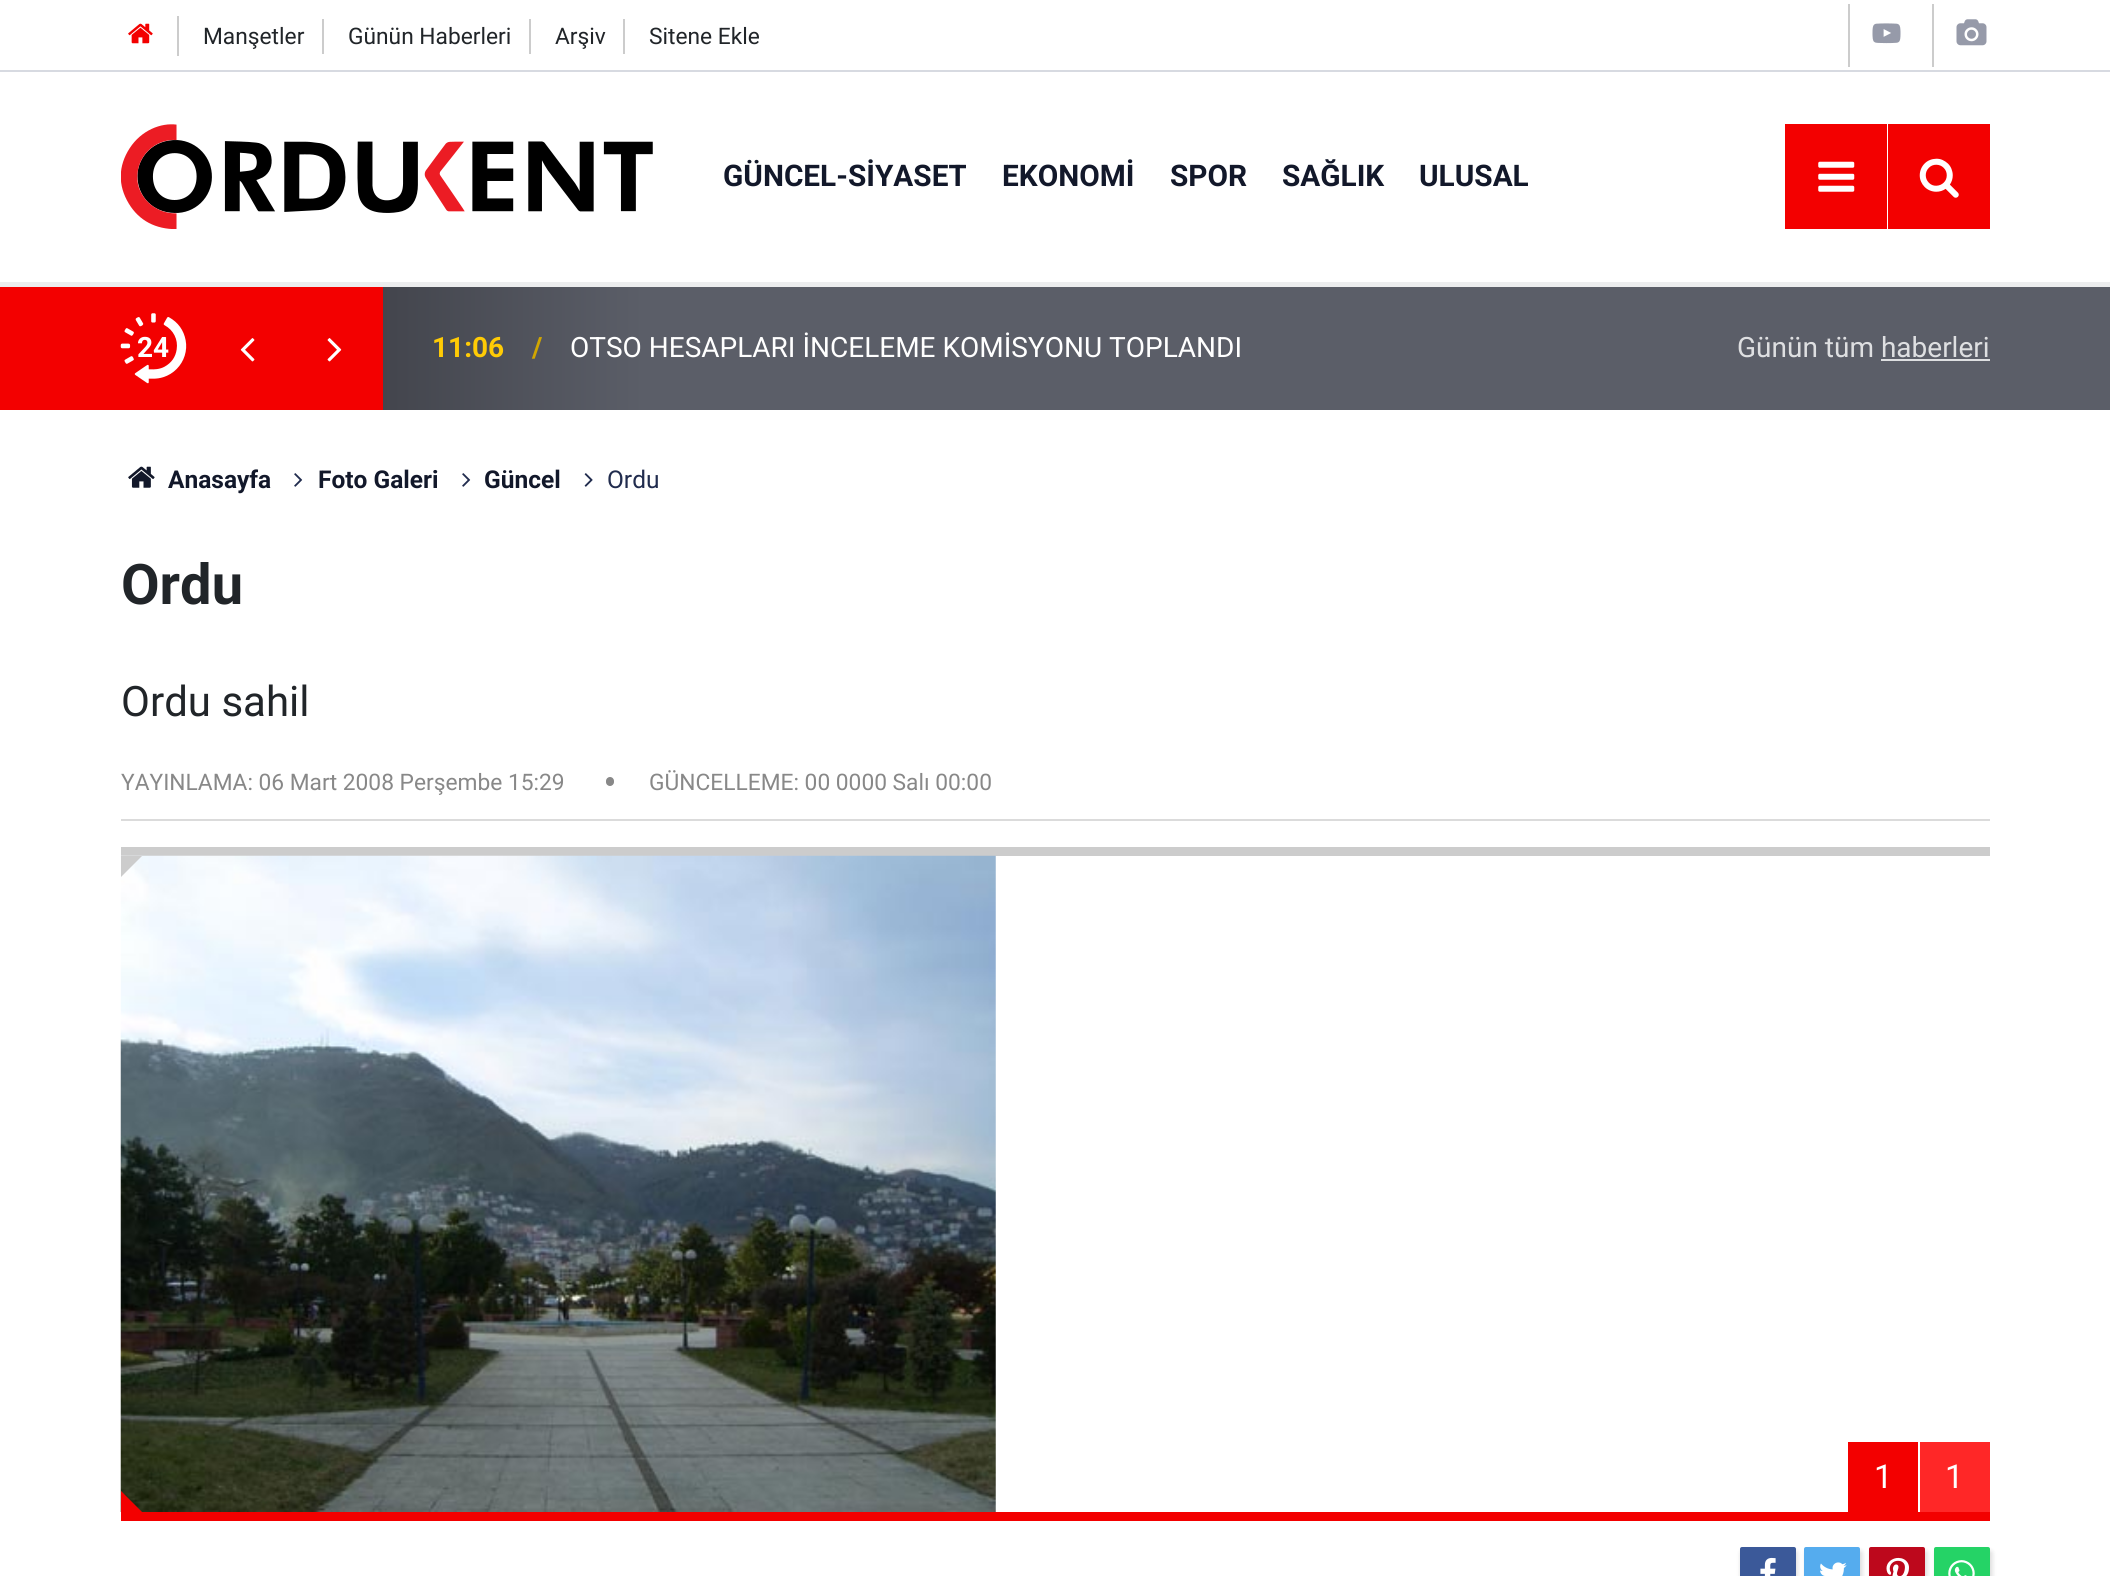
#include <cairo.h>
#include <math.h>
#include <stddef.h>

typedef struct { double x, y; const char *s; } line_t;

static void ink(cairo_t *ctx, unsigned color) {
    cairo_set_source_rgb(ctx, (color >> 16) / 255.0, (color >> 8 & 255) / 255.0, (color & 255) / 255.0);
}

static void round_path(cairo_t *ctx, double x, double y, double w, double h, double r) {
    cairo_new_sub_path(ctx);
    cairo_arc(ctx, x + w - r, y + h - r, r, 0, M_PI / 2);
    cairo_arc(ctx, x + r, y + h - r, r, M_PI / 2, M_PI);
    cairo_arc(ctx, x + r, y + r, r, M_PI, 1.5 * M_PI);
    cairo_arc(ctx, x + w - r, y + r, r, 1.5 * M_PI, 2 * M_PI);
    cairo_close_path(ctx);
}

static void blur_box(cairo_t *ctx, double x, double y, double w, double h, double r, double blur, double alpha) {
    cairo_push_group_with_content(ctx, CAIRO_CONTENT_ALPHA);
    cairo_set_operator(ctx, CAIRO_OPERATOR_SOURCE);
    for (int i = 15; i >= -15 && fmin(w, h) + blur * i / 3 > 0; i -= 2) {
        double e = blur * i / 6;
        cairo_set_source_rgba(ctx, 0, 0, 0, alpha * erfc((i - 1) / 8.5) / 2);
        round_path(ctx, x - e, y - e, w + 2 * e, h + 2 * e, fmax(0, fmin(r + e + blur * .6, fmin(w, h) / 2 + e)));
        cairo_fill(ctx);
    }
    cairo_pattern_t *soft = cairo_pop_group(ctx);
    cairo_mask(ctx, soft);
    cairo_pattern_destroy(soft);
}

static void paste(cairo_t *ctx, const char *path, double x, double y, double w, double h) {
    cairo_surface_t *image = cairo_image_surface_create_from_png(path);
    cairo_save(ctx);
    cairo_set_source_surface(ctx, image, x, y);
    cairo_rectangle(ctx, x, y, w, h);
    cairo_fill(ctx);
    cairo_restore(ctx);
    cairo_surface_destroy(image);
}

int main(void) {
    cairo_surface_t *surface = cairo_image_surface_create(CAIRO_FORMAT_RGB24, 2110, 1576);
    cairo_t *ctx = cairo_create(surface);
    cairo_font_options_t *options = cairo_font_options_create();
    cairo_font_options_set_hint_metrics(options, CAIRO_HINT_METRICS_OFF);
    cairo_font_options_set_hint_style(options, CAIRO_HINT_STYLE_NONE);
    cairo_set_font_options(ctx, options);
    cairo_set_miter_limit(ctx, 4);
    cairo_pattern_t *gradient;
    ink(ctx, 0xFFFFFF);
    cairo_paint(ctx);
    ink(ctx, 0xCCCCCC);
    cairo_rectangle(ctx, 177, 16, 2, 40);
    cairo_fill(ctx);
    paste(ctx, "media/1.png", 128, 23, 25, 21);
    cairo_rectangle(ctx, 322, 19, 2, 35);
    cairo_fill(ctx);
    cairo_select_font_face(ctx, "Roboto", CAIRO_FONT_SLANT_NORMAL, CAIRO_FONT_WEIGHT_NORMAL);
    cairo_set_font_size(ctx, 22.75);
    ink(ctx, 0x212529);
    cairo_move_to(ctx, 203, 44);
    cairo_show_text(ctx, "Manşetler");
    ink(ctx, 0xCCCCCC);
    cairo_rectangle(ctx, 529, 19, 2, 35);
    cairo_fill(ctx);
    ink(ctx, 0x212529);
    cairo_move_to(ctx, 348, 44);
    cairo_show_text(ctx, "Günün Haberleri");
    ink(ctx, 0xCCCCCC);
    cairo_rectangle(ctx, 623, 19, 2, 35);
    cairo_fill(ctx);
    ink(ctx, 0x212529);
    cairo_move_to(ctx, 555, 44);
    cairo_show_text(ctx, "Arşiv");
    cairo_move_to(ctx, 649, 44);
    cairo_show_text(ctx, "Sitene Ekle");
    ink(ctx, 0xCCCCCC);
    cairo_rectangle(ctx, 1848, 4, 2, 63);
    cairo_fill(ctx);
    paste(ctx, "media/2.png", 1872, 23, 29, 21);
    cairo_rectangle(ctx, 1932, 4, 2, 63);
    cairo_fill(ctx);
    paste(ctx, "media/3.png", 1956, 19, 31, 27);
    ink(ctx, 0xD7DAE1);
    cairo_rectangle(ctx, 0, 70, 2110, 2);
    cairo_fill(ctx);
    ink(ctx, 0xECEDEE);
    cairo_rectangle(ctx, 0, 282, 2110, 5);
    cairo_fill(ctx);
    paste(ctx, "media/4.png", 121, 124, 532, 105);
    cairo_select_font_face(ctx, "Roboto", CAIRO_FONT_SLANT_NORMAL, CAIRO_FONT_WEIGHT_BOLD);
    cairo_set_font_size(ctx, 29.75);
    ink(ctx, 0x12182A);
    {
        static const line_t items[] = {
            {723, 186, "GÜNCEL-SİYASET"},
            {1002, 186, "EKONOMİ"},
            {1170, 186, "SPOR"},
            {1282, 186, "SAĞLIK"},
            {1419, 186, "ULUSAL"},
        };
        for (size_t i = 0; i < sizeof items / sizeof *items; i++) {
            cairo_move_to(ctx, items[i].x, items[i].y);
            cairo_show_text(ctx, items[i].s);
        }
    }
    ink(ctx, 0xF30000);
    cairo_rectangle(ctx, 1785, 124, 102, 105);
    cairo_fill(ctx);
    paste(ctx, "media/5.png", 1818, 161, 37, 31);
    cairo_rectangle(ctx, 1888, 124, 102, 105);
    cairo_fill(ctx);
    paste(ctx, "media/6.png", 1919, 158, 40, 40);
    cairo_rectangle(ctx, 0, 287, 121, 123);
    cairo_fill(ctx);
    ink(ctx, 0x5B5E68);
    cairo_rectangle(ctx, 1990, 287, 120, 123);
    cairo_fill(ctx);
    gradient = cairo_pattern_create_linear(121, 348, 1990, 348);
    cairo_pattern_add_color_stop_rgba(gradient, 0.05, 0.953, 0, 0, 1);
    cairo_pattern_add_color_stop_rgba(gradient, 0.14, 0.953, 0, 0, 1);
    cairo_pattern_add_color_stop_rgba(gradient, 0.14, 0.263, 0.271, 0.302, 1);
    cairo_pattern_add_color_stop_rgba(gradient, 0.28, 0.357, 0.369, 0.408, 1);
    cairo_set_source(ctx, gradient);
    cairo_pattern_destroy(gradient);
    cairo_rectangle(ctx, 121, 287, 1869, 123);
    cairo_fill(ctx);
    paste(ctx, "media/7.png", 120, 313, 67, 71);
    cairo_set_font_size(ctx, 28);
    ink(ctx, 0xFFFFFF);
    cairo_move_to(ctx, 137, 357);
    cairo_show_text(ctx, "24");
    paste(ctx, "media/8.png", 240, 338, 15, 24);
    paste(ctx, "media/9.png", 327, 338, 15, 24);
    ink(ctx, 0xFFCB05);
    cairo_move_to(ctx, 432, 357);
    cairo_show_text(ctx, "11:06");
    ink(ctx, 0xD1A600);
    cairo_move_to(ctx, 532, 357);
    cairo_show_text(ctx, "/");
    cairo_select_font_face(ctx, "Roboto", CAIRO_FONT_SLANT_NORMAL, CAIRO_FONT_WEIGHT_NORMAL);
    ink(ctx, 0xFFFFFF);
    cairo_move_to(ctx, 570, 357);
    cairo_show_text(ctx, "OTSO HESAPLARI İNCELEME KOMİSYONU TOPLANDI");
    ink(ctx, 0xDEDFE1);
    cairo_move_to(ctx, 1737, 357);
    cairo_show_text(ctx, "Günün tüm haberleri");
    cairo_rectangle(ctx, 1881, 359, 109, 2);
    cairo_fill(ctx);
    paste(ctx, "media/10.png", 128, 466, 27, 22);
    cairo_select_font_face(ctx, "Roboto", CAIRO_FONT_SLANT_NORMAL, CAIRO_FONT_WEIGHT_BOLD);
    cairo_set_font_size(ctx, 24.5);
    ink(ctx, 0x12182A);
    cairo_move_to(ctx, 168, 488);
    cairo_show_text(ctx, "Anasayfa");
    paste(ctx, "media/11.png", 294, 473, 9, 14);
    cairo_move_to(ctx, 318, 488);
    cairo_show_text(ctx, "Foto Galeri");
    paste(ctx, "media/11.png", 462, 473, 9, 14);
    cairo_move_to(ctx, 484, 488);
    cairo_show_text(ctx, "Güncel");
    paste(ctx, "media/12.png", 584, 473, 9, 14);
    cairo_select_font_face(ctx, "Roboto", CAIRO_FONT_SLANT_NORMAL, CAIRO_FONT_WEIGHT_NORMAL);
    ink(ctx, 0x212C4E);
    cairo_move_to(ctx, 607, 488);
    cairo_show_text(ctx, "Ordu");
    cairo_select_font_face(ctx, "Roboto", CAIRO_FONT_SLANT_NORMAL, CAIRO_FONT_WEIGHT_BOLD);
    cairo_set_font_size(ctx, 56);
    ink(ctx, 0x212529);
    cairo_move_to(ctx, 121, 604);
    cairo_show_text(ctx, "Ordu");
    cairo_select_font_face(ctx, "Roboto", CAIRO_FONT_SLANT_NORMAL, CAIRO_FONT_WEIGHT_NORMAL);
    cairo_set_font_size(ctx, 42);
    cairo_move_to(ctx, 121, 716);
    cairo_show_text(ctx, "Ordu sahil");
    ink(ctx, 0xDBDBDB);
    cairo_rectangle(ctx, 121, 819, 1869, 2);
    cairo_fill(ctx);
    cairo_set_font_size(ctx, 22.75);
    ink(ctx, 0x888888);
    cairo_move_to(ctx, 121, 790);
    cairo_show_text(ctx, "YAYINLAMA: 06 Mart 2008 Perşembe 15:29");
    round_path(ctx, 606, 777, 8, 9, 4);
    cairo_fill(ctx);
    cairo_move_to(ctx, 649, 790);
    cairo_show_text(ctx, "GÜNCELLEME: 00 0000 Salı 00:00");
    ink(ctx, 0xCCCCCC);
    cairo_rectangle(ctx, 121, 847, 1869, 9);
    cairo_fill(ctx);
    ink(ctx, 0xF30000);
    cairo_rectangle(ctx, 121, 1512, 1869, 9);
    cairo_fill(ctx);
    paste(ctx, "media/13.png", 120, 855, 876, 657);
    ink(ctx, 0xCCCCCC);
    cairo_new_path(ctx);
    cairo_move_to(ctx, 121, 856);
    cairo_line_to(ctx, 142, 856);
    cairo_line_to(ctx, 121, 877);
    cairo_close_path(ctx);
    cairo_fill(ctx);
    ink(ctx, 0xF30000);
    cairo_rectangle(ctx, 1848, 1442, 70, 70);
    cairo_fill(ctx);
    cairo_set_font_size(ctx, 33);
    ink(ctx, 0xFFFFFF);
    cairo_move_to(ctx, 1874, 1488);
    cairo_show_text(ctx, "1");
    ink(ctx, 0xFF2727);
    cairo_rectangle(ctx, 1920, 1442, 70, 70);
    cairo_fill(ctx);
    ink(ctx, 0xFFFFFF);
    cairo_move_to(ctx, 1945, 1488);
    cairo_show_text(ctx, "1");
    ink(ctx, 0xF30000);
    cairo_new_path(ctx);
    cairo_move_to(ctx, 121, 1512);
    cairo_line_to(ctx, 121, 1491);
    cairo_line_to(ctx, 142, 1512);
    cairo_close_path(ctx);
    cairo_fill(ctx);
    ink(ctx, 0x020303);
    blur_box(ctx, 1741, 1551, 56, 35, 2, 2.5, 0.15);
    ink(ctx, 0x3B5999);
    round_path(ctx, 1740, 1547, 56, 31, 2);
    cairo_fill(ctx);
    paste(ctx, "media/14.png", 1760, 1557, 16, 19);
    ink(ctx, 0x020303);
    blur_box(ctx, 1806, 1551, 56, 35, 2, 2.5, 0.15);
    ink(ctx, 0x55ACEE);
    round_path(ctx, 1804, 1547, 56, 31, 2);
    cairo_fill(ctx);
    paste(ctx, "media/15.png", 1820, 1562, 27, 14);
    ink(ctx, 0x020303);
    blur_box(ctx, 1871, 1551, 56, 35, 2, 2.5, 0.15);
    ink(ctx, 0xBD081C);
    round_path(ctx, 1869, 1547, 56, 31, 2);
    cairo_fill(ctx);
    paste(ctx, "media/16.png", 1886, 1557, 23, 19);
    ink(ctx, 0x020303);
    blur_box(ctx, 1936, 1551, 56, 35, 2, 2.5, 0.15);
    ink(ctx, 0x25D366);
    round_path(ctx, 1934, 1547, 56, 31, 2);
    cairo_fill(ctx);
    paste(ctx, "media/17.png", 1948, 1560, 27, 16);
    cairo_surface_write_to_png(surface, "image.png");
    cairo_font_options_destroy(options);
    cairo_destroy(ctx);
    cairo_surface_destroy(surface);
    return 0;
}
